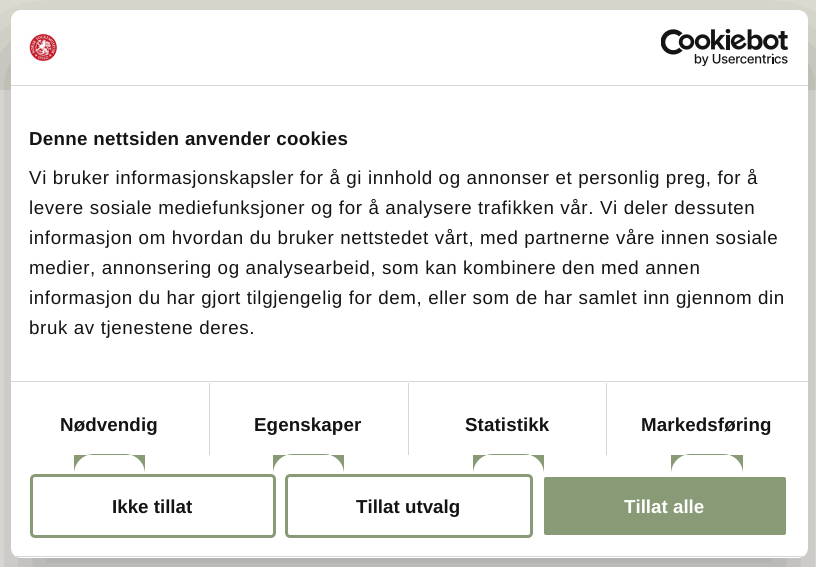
#include <cairo.h>
#include <math.h>
#include <stddef.h>

typedef struct { double x, y; const char *s; } line_t;

static void ink(cairo_t *ctx, unsigned color) {
    cairo_set_source_rgb(ctx, (color >> 16) / 255.0, (color >> 8 & 255) / 255.0, (color & 255) / 255.0);
}

static void write_spaced(cairo_t *ctx, double x, double y, const char *s, double letter, double word) {
    cairo_move_to(ctx, x, y);
    while (*s) {
        char ch[5] = {0};
        int n = 0;
        do ch[n++] = *s++; while ((*s & 0xC0) == 0x80);
        cairo_show_text(ctx, ch);
        cairo_rel_move_to(ctx, letter + word * (*ch == ' '), 0);
    }
}

static void round_path(cairo_t *ctx, double x, double y, double w, double h, double r) {
    cairo_new_sub_path(ctx);
    cairo_arc(ctx, x + w - r, y + h - r, r, 0, M_PI / 2);
    cairo_arc(ctx, x + r, y + h - r, r, M_PI / 2, M_PI);
    cairo_arc(ctx, x + r, y + r, r, M_PI, 1.5 * M_PI);
    cairo_arc(ctx, x + w - r, y + r, r, 1.5 * M_PI, 2 * M_PI);
    cairo_close_path(ctx);
}

static void blur_box(cairo_t *ctx, double x, double y, double w, double h, double r, double blur, double alpha) {
    cairo_push_group_with_content(ctx, CAIRO_CONTENT_ALPHA);
    cairo_set_operator(ctx, CAIRO_OPERATOR_SOURCE);
    for (int i = 15; i >= -15 && fmin(w, h) + blur * i / 3 > 0; i -= 2) {
        double e = blur * i / 6;
        cairo_set_source_rgba(ctx, 0, 0, 0, alpha * erfc((i - 1) / 8.5) / 2);
        round_path(ctx, x - e, y - e, w + 2 * e, h + 2 * e, fmax(0, fmin(r + e + blur * .6, fmin(w, h) / 2 + e)));
        cairo_fill(ctx);
    }
    cairo_pattern_t *soft = cairo_pop_group(ctx);
    cairo_mask(ctx, soft);
    cairo_pattern_destroy(soft);
}

static void paste(cairo_t *ctx, const char *path, double x, double y, double w, double h) {
    cairo_surface_t *image = cairo_image_surface_create_from_png(path);
    cairo_save(ctx);
    cairo_set_source_surface(ctx, image, x, y);
    cairo_rectangle(ctx, x, y, w, h);
    cairo_fill(ctx);
    cairo_restore(ctx);
    cairo_surface_destroy(image);
}

int main(void) {
    cairo_surface_t *surface = cairo_image_surface_create(CAIRO_FORMAT_RGB24, 816, 567);
    cairo_t *ctx = cairo_create(surface);
    cairo_font_options_t *options = cairo_font_options_create();
    cairo_font_options_set_hint_metrics(options, CAIRO_HINT_METRICS_OFF);
    cairo_font_options_set_hint_style(options, CAIRO_HINT_STYLE_NONE);
    cairo_set_font_options(ctx, options);
    cairo_set_miter_limit(ctx, 4);
    ink(ctx, 0xE0E0D6);
    cairo_paint(ctx);
    ink(ctx, 0xF0EFEB);
    cairo_rectangle(ctx, 0, 90, 816, 477);
    cairo_fill(ctx);
    ink(ctx, 0x000000);
    blur_box(ctx, 11, 50, 797, 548, 10, 42.5, 0.3);
    ink(ctx, 0xFFFFFF);
    round_path(ctx, 11, 10, 797, 548, 10);
    cairo_fill(ctx);
    ink(ctx, 0xD6D6D6);
    cairo_rectangle(ctx, 11, 85, 797, 1);
    cairo_fill(ctx);
    paste(ctx, "media/1.png", 29, 33, 28, 29);
    paste(ctx, "media/2.png", 661, 29, 127, 37);
    cairo_rectangle(ctx, 11, 381, 797, 1);
    cairo_fill(ctx);
    cairo_select_font_face(ctx, "Liberation Sans", CAIRO_FONT_SLANT_NORMAL, CAIRO_FONT_WEIGHT_BOLD);
    cairo_set_font_size(ctx, 18.75);
    ink(ctx, 0x141414);
    write_spaced(ctx, 29, 145, "Denne nettsiden anvender cookies", 0.3, 0);
    cairo_select_font_face(ctx, "Liberation Sans", CAIRO_FONT_SLANT_NORMAL, CAIRO_FONT_WEIGHT_NORMAL);
    {
        static const line_t items[] = {
            {29, 184, "Vi bruker informasjonskapsler for å gi innhold og annonser et personlig preg, for å"},
            {29, 214, "levere sosiale mediefunksjoner og for å analysere trafikken vår. Vi deler dessuten"},
            {29, 244, "informasjon om hvordan du bruker nettstedet vårt, med partnerne våre innen sosiale"},
            {29, 274, "medier, annonsering og analysearbeid, som kan kombinere den med annen"},
            {29, 304, "informasjon du har gjort tilgjengelig for dem, eller som de har samlet inn gjennom din"},
            {29, 334, "bruk av tjenestene deres."},
        };
        for (size_t i = 0; i < sizeof items / sizeof *items; i++) {
            write_spaced(ctx, items[i].x, items[i].y, items[i].s, 0.62, 0);
        }
    }
    ink(ctx, 0xD6D6D6);
    cairo_rectangle(ctx, 209, 383, 1, 72);
    cairo_fill(ctx);
    cairo_select_font_face(ctx, "Liberation Sans", CAIRO_FONT_SLANT_NORMAL, CAIRO_FONT_WEIGHT_BOLD);
    ink(ctx, 0x141414);
    write_spaced(ctx, 60, 431, "Nødvendig", 0.1, 0);
    ink(ctx, 0x889A76);
    cairo_new_path(ctx);
    cairo_move_to(ctx, 94, 454);
    cairo_line_to(ctx, 125, 454);
    cairo_curve_to(ctx, 136, 454, 145, 463, 145, 474);
    cairo_line_to(ctx, 145, 455);
    cairo_line_to(ctx, 74, 455);
    cairo_line_to(ctx, 74, 474);
    cairo_curve_to(ctx, 74, 463, 83, 454, 94, 454);
    cairo_close_path(ctx);
    cairo_fill(ctx);
    ink(ctx, 0xD6D6D6);
    cairo_rectangle(ctx, 408, 383, 1, 72);
    cairo_fill(ctx);
    ink(ctx, 0x141414);
    write_spaced(ctx, 254, 431, "Egenskaper", 0.1, 0);
    ink(ctx, 0x889A76);
    cairo_new_path(ctx);
    cairo_move_to(ctx, 293, 454);
    cairo_line_to(ctx, 324, 454);
    cairo_curve_to(ctx, 335, 454, 344, 463, 344, 474);
    cairo_line_to(ctx, 344, 455);
    cairo_line_to(ctx, 273, 455);
    cairo_line_to(ctx, 273, 474);
    cairo_curve_to(ctx, 273, 463, 282, 454, 293, 454);
    cairo_close_path(ctx);
    cairo_fill(ctx);
    ink(ctx, 0xD6D6D6);
    cairo_rectangle(ctx, 606, 383, 1, 72);
    cairo_fill(ctx);
    ink(ctx, 0x141414);
    write_spaced(ctx, 465, 431, "Statistikk", 0.1, 0);
    ink(ctx, 0x889A76);
    cairo_new_path(ctx);
    cairo_move_to(ctx, 493, 454);
    cairo_line_to(ctx, 524, 454);
    cairo_curve_to(ctx, 535, 454, 544, 463, 544, 474);
    cairo_line_to(ctx, 544, 455);
    cairo_line_to(ctx, 473, 455);
    cairo_line_to(ctx, 473, 474);
    cairo_curve_to(ctx, 473, 463, 482, 454, 493, 454);
    cairo_close_path(ctx);
    cairo_fill(ctx);
    ink(ctx, 0x141414);
    write_spaced(ctx, 641, 431, "Markedsføring", 0.1, 0);
    ink(ctx, 0x889A76);
    cairo_new_path(ctx);
    cairo_move_to(ctx, 691, 454);
    cairo_line_to(ctx, 723, 454);
    cairo_curve_to(ctx, 734, 454, 743, 463, 743, 474);
    cairo_line_to(ctx, 743, 455);
    cairo_line_to(ctx, 671, 455);
    cairo_line_to(ctx, 671, 474);
    cairo_curve_to(ctx, 671, 463, 680, 454, 691, 454);
    cairo_close_path(ctx);
    cairo_fill(ctx);
    cairo_save(ctx);
    round_path(ctx, 11, 10, 797, 548, 10);
    cairo_clip(ctx);
    ink(ctx, 0xD6D6D6);
    cairo_rectangle(ctx, 11, 556, 797, 1);
    cairo_fill(ctx);
    cairo_restore(ctx);
    round_path(ctx, 31.5, 475.5, 243, 61, 3.5);
    cairo_set_line_width(ctx, 3);
    cairo_stroke(ctx);
    ink(ctx, 0x141414);
    cairo_move_to(ctx, 112, 513);
    cairo_show_text(ctx, "Ikke tillat");
    round_path(ctx, 286.5, 475.5, 245, 61, 3.5);
    ink(ctx, 0x889A76);
    cairo_stroke(ctx);
    ink(ctx, 0x141414);
    cairo_move_to(ctx, 356, 513);
    cairo_show_text(ctx, "Tillat utvalg");
    ink(ctx, 0x889A76);
    round_path(ctx, 542.5, 475.5, 245, 61, 3.5);
    cairo_fill_preserve(ctx);
    ink(ctx, 0xFFFFFF);
    cairo_stroke(ctx);
    cairo_move_to(ctx, 624, 513);
    cairo_show_text(ctx, "Tillat alle");
    cairo_surface_write_to_png(surface, "image.png");
    cairo_font_options_destroy(options);
    cairo_destroy(ctx);
    cairo_surface_destroy(surface);
    return 0;
}
